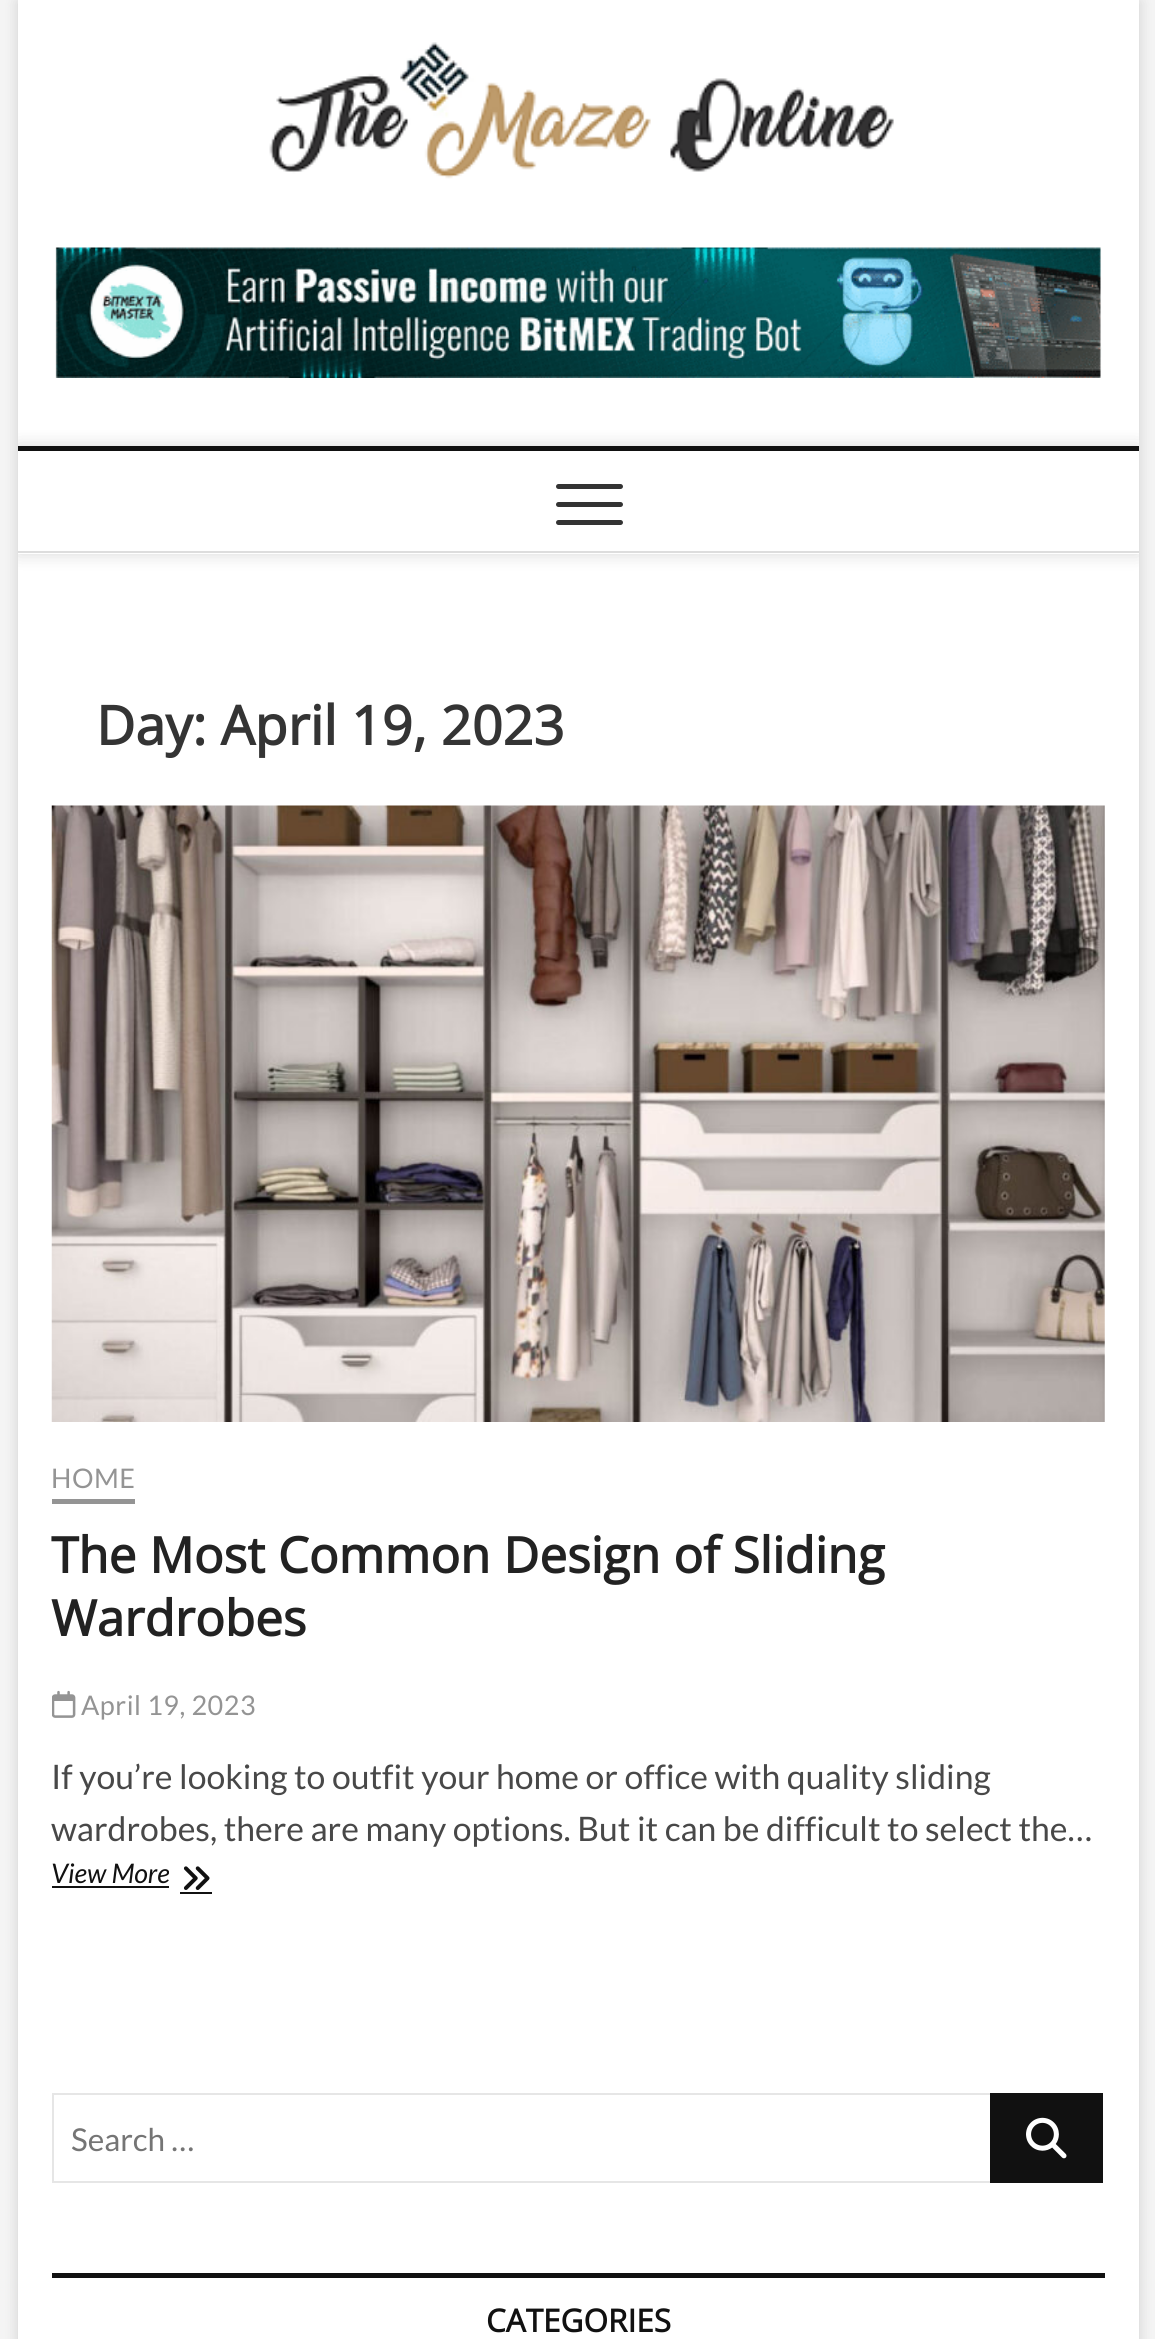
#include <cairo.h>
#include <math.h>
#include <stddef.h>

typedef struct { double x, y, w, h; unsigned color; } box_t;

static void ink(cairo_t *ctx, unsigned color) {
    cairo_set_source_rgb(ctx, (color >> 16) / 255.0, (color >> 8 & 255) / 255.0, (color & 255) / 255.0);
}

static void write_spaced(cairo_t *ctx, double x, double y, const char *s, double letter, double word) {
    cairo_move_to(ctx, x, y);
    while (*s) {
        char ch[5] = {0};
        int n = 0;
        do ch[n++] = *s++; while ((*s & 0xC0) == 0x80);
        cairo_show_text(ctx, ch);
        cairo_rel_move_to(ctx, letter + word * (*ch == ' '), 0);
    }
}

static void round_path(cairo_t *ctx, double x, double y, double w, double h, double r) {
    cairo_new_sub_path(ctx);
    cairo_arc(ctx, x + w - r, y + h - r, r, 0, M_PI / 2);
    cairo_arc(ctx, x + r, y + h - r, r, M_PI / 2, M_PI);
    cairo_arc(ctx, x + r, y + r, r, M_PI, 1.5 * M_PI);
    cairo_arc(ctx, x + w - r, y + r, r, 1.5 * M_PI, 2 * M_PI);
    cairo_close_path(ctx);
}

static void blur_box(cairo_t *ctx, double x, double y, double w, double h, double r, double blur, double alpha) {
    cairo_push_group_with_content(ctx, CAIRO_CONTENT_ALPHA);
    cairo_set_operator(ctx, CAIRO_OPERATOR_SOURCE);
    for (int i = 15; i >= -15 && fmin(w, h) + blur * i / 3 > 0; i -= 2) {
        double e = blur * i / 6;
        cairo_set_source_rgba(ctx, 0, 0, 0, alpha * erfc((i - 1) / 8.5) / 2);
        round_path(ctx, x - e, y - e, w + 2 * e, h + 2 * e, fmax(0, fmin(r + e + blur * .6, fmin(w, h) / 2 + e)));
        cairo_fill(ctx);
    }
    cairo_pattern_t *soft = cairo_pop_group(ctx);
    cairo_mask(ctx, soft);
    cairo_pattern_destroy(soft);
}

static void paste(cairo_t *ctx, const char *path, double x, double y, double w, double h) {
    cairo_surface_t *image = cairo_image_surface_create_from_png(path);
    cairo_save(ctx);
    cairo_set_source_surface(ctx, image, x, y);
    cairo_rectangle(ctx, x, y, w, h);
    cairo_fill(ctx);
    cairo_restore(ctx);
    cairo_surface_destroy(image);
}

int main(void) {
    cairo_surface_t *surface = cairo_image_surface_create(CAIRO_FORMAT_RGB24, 1155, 2339);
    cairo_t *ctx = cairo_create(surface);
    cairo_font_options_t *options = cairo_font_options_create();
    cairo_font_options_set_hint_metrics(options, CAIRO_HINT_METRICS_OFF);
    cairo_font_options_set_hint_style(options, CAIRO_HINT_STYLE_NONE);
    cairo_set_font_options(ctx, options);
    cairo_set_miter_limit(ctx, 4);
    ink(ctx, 0xF4F4F4);
    cairo_paint(ctx);
    ink(ctx, 0x000000);
    blur_box(ctx, 18, 2, 1121, 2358, 0, 7, 0.15);
    ink(ctx, 0xFFFFFF);
    cairo_rectangle(ctx, 18, 0, 1121, 2339);
    cairo_fill(ctx);
    paste(ctx, "media/1.png", 269, 42, 625, 137);
    paste(ctx, "media/2.png", 55, 247, 1047, 131);
    cairo_save(ctx);
    cairo_rectangle(ctx, 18, 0, 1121, 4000);
    cairo_clip(ctx);
    ink(ctx, 0x000000);
    blur_box(ctx, 18, 446, 1121, 108, 0, 9, 0.15);
    cairo_restore(ctx);
    {
        static const box_t items[] = {
            {18, 451, 1121, 103, 0xFFFFFF},
            {18, 446, 1121, 5, 0x111111},
            {18, 551, 1121, 2, 0xDDDDDD},
        };
        for (size_t i = 0; i < sizeof items / sizeof *items; i++) {
            ink(ctx, items[i].color);
            cairo_rectangle(ctx, items[i].x, items[i].y, items[i].w, items[i].h);
            cairo_fill(ctx);
        }
    }
    ink(ctx, 0x333333);
    round_path(ctx, 556, 502, 67, 5, 2.5);
    cairo_fill(ctx);
    round_path(ctx, 556, 484, 67, 5, 2.5);
    cairo_fill(ctx);
    round_path(ctx, 556, 520, 67, 5, 2.5);
    cairo_fill(ctx);
    cairo_select_font_face(ctx, "Open Sans", CAIRO_FONT_SLANT_NORMAL, CAIRO_FONT_WEIGHT_BOLD);
    cairo_set_font_size(ctx, 54);
    ink(ctx, 0x343434);
    cairo_move_to(ctx, 96, 745);
    cairo_show_text(ctx, "Day: April 19, 2023");
    paste(ctx, "media/3.png", 51, 805, 1054, 617);
    cairo_select_font_face(ctx, "Lato", CAIRO_FONT_SLANT_NORMAL, CAIRO_FONT_WEIGHT_NORMAL);
    cairo_set_font_size(ctx, 27);
    ink(ctx, 0x949494);
    write_spaced(ctx, 51, 1488, "HOME", 0.5, 0);
    cairo_rectangle(ctx, 52, 1499, 83, 5);
    cairo_fill(ctx);
    cairo_select_font_face(ctx, "Open Sans", CAIRO_FONT_SLANT_NORMAL, CAIRO_FONT_WEIGHT_BOLD);
    cairo_set_font_size(ctx, 49.5);
    ink(ctx, 0x222222);
    cairo_move_to(ctx, 51, 1573);
    cairo_show_text(ctx, "The Most Common Design of Sliding");
    cairo_move_to(ctx, 51, 1636);
    cairo_show_text(ctx, "Wardrobes");
    paste(ctx, "media/4.png", 52, 1690, 24, 28);
    cairo_select_font_face(ctx, "Lato", CAIRO_FONT_SLANT_NORMAL, CAIRO_FONT_WEIGHT_NORMAL);
    cairo_set_font_size(ctx, 27);
    ink(ctx, 0x949494);
    write_spaced(ctx, 81, 1715, "April 19, 2023", 0.5, 0);
    cairo_set_font_size(ctx, 33.75);
    ink(ctx, 0x484848);
    cairo_move_to(ctx, 51, 1789);
    cairo_show_text(ctx, "If you’re looking to outfit your home or office with quality sliding");
    cairo_move_to(ctx, 51, 1841);
    cairo_show_text(ctx, "wardrobes, there are many options. But it can be difficult to select the…");
    cairo_select_font_face(ctx, "Lato", CAIRO_FONT_SLANT_ITALIC, CAIRO_FONT_WEIGHT_NORMAL);
    cairo_set_font_size(ctx, 27);
    ink(ctx, 0x111111);
    cairo_move_to(ctx, 51, 1883);
    cairo_show_text(ctx, "View More");
    cairo_rectangle(ctx, 52, 1886, 117, 2);
    cairo_fill(ctx);
    paste(ctx, "media/5.png", 183, 1866, 27, 24);
    cairo_rectangle(ctx, 180, 1892, 32, 2);
    cairo_fill(ctx);
    cairo_rectangle(ctx, 53, 2094, 938, 88);
    ink(ctx, 0xE6E6E6);
    cairo_stroke(ctx);
    cairo_select_font_face(ctx, "Lato", CAIRO_FONT_SLANT_NORMAL, CAIRO_FONT_WEIGHT_NORMAL);
    cairo_set_font_size(ctx, 31.5);
    ink(ctx, 0x757575);
    cairo_move_to(ctx, 71, 2151);
    cairo_show_text(ctx, "Search …");
    ink(ctx, 0x111111);
    cairo_rectangle(ctx, 990, 2093, 113, 90);
    cairo_fill(ctx);
    paste(ctx, "media/6.png", 1026, 2117, 41, 42);
    cairo_rectangle(ctx, 52, 2273, 1053, 5);
    cairo_fill(ctx);
    cairo_select_font_face(ctx, "Open Sans", CAIRO_FONT_SLANT_NORMAL, CAIRO_FONT_WEIGHT_BOLD);
    cairo_move_to(ctx, 486, 2332);
    cairo_show_text(ctx, "CATEGORIES");
    cairo_surface_write_to_png(surface, "image.png");
    cairo_font_options_destroy(options);
    cairo_destroy(ctx);
    cairo_surface_destroy(surface);
    return 0;
}
